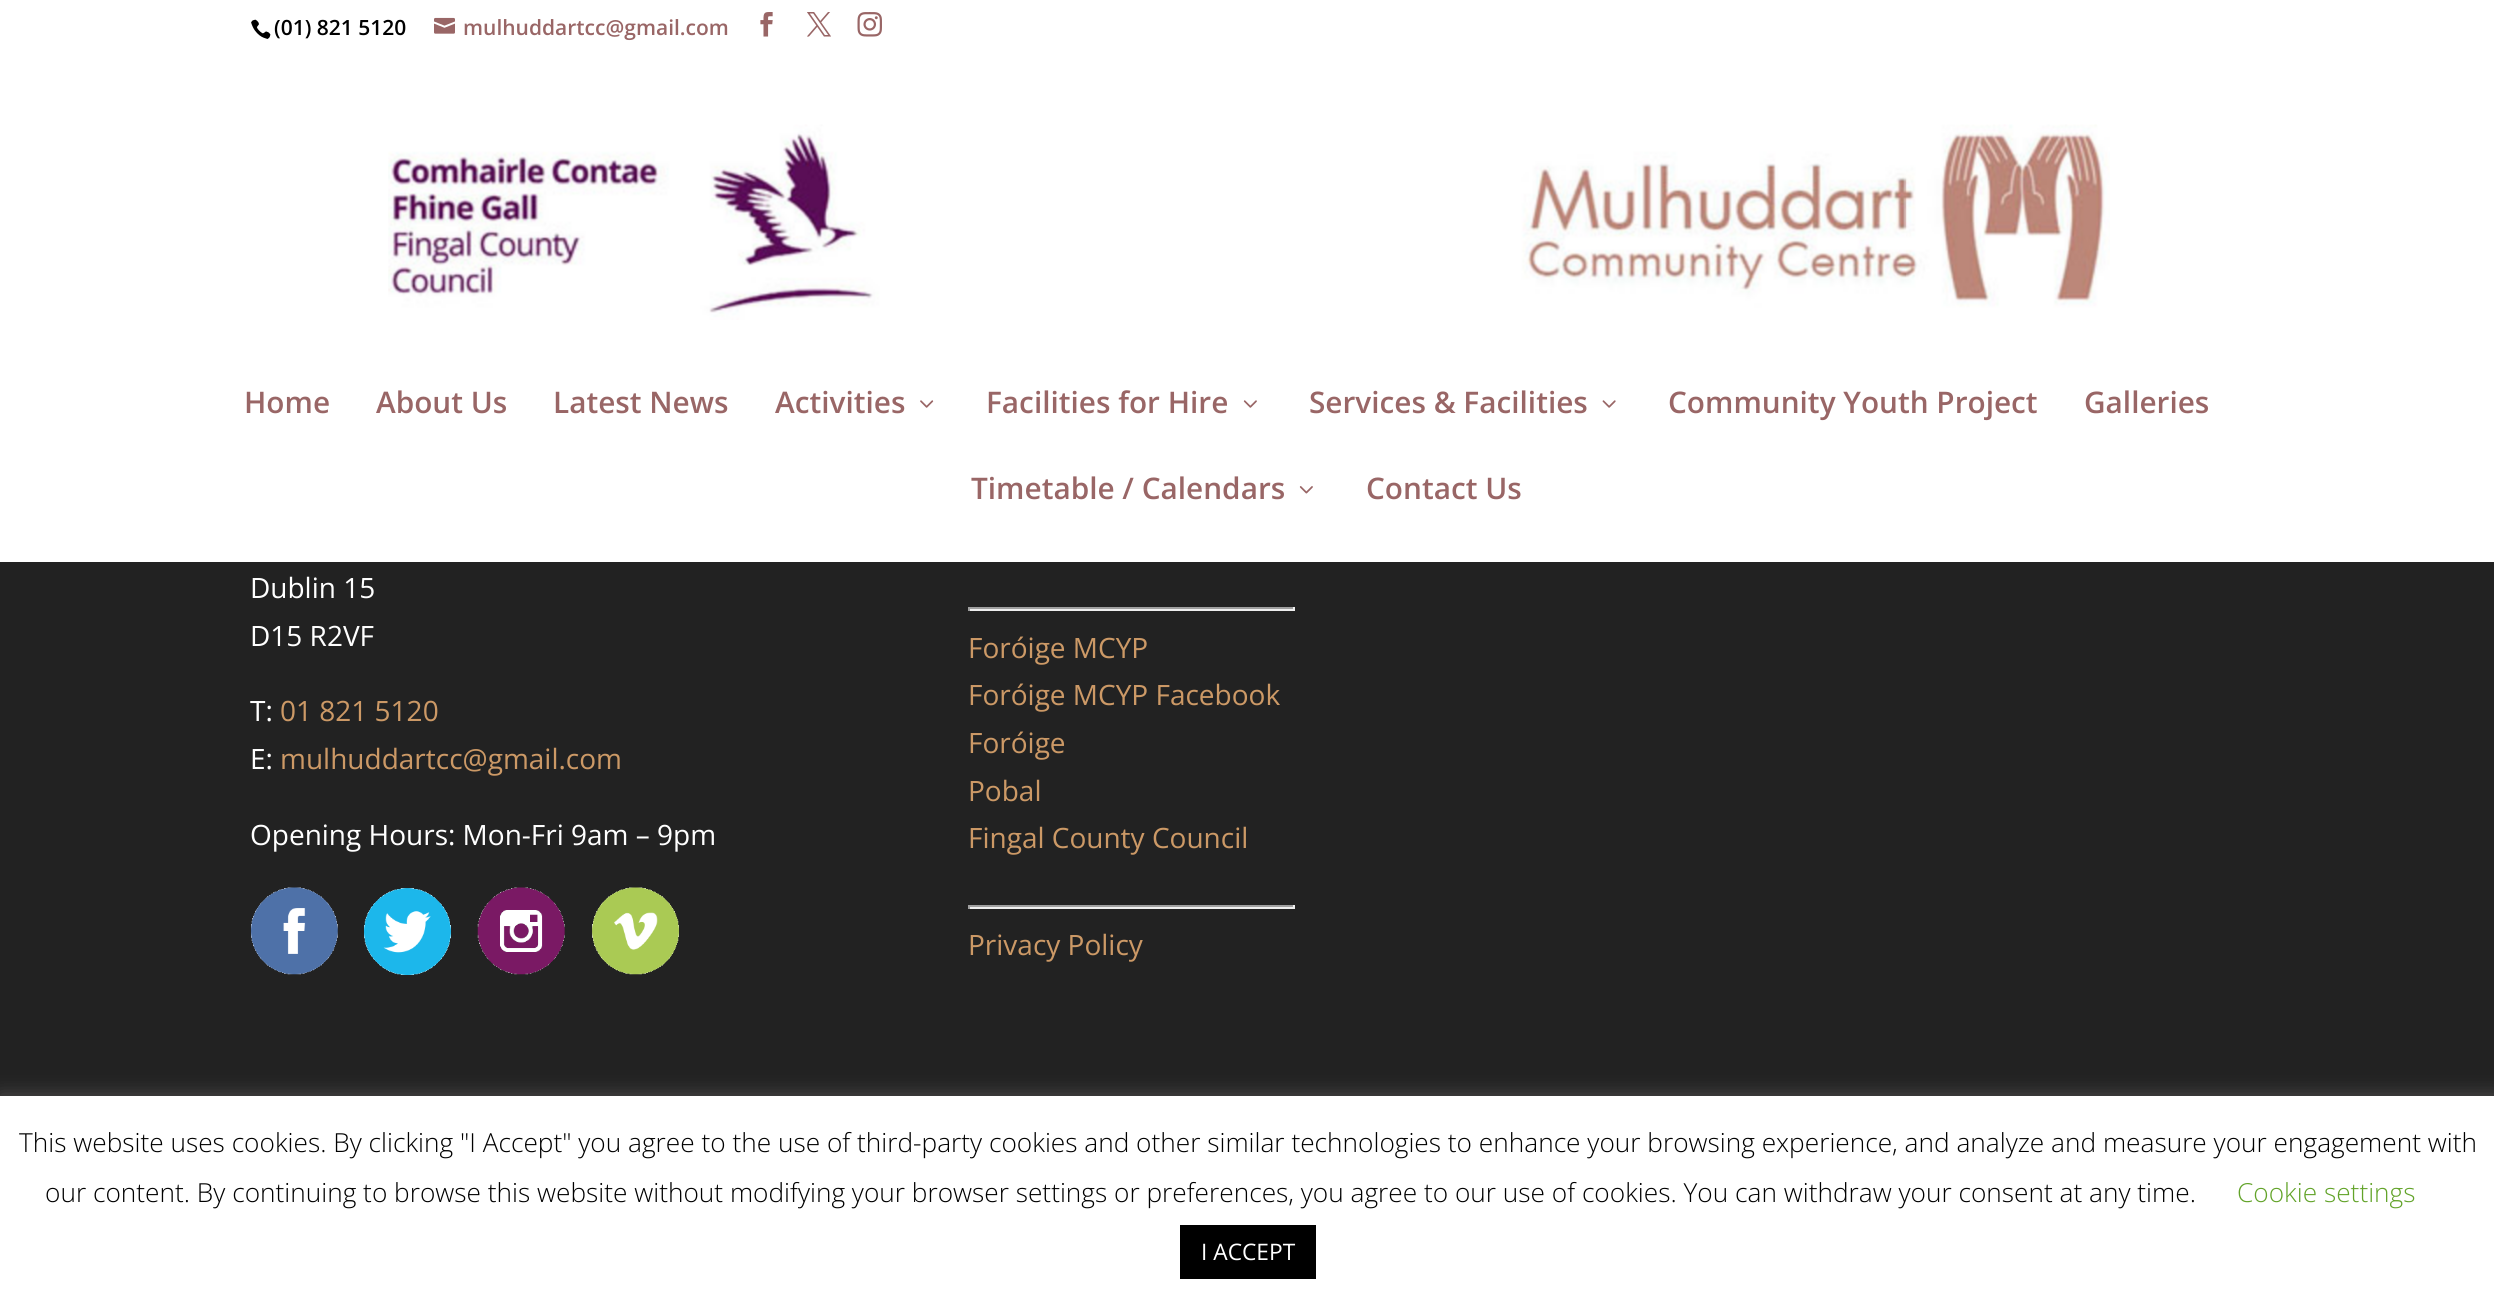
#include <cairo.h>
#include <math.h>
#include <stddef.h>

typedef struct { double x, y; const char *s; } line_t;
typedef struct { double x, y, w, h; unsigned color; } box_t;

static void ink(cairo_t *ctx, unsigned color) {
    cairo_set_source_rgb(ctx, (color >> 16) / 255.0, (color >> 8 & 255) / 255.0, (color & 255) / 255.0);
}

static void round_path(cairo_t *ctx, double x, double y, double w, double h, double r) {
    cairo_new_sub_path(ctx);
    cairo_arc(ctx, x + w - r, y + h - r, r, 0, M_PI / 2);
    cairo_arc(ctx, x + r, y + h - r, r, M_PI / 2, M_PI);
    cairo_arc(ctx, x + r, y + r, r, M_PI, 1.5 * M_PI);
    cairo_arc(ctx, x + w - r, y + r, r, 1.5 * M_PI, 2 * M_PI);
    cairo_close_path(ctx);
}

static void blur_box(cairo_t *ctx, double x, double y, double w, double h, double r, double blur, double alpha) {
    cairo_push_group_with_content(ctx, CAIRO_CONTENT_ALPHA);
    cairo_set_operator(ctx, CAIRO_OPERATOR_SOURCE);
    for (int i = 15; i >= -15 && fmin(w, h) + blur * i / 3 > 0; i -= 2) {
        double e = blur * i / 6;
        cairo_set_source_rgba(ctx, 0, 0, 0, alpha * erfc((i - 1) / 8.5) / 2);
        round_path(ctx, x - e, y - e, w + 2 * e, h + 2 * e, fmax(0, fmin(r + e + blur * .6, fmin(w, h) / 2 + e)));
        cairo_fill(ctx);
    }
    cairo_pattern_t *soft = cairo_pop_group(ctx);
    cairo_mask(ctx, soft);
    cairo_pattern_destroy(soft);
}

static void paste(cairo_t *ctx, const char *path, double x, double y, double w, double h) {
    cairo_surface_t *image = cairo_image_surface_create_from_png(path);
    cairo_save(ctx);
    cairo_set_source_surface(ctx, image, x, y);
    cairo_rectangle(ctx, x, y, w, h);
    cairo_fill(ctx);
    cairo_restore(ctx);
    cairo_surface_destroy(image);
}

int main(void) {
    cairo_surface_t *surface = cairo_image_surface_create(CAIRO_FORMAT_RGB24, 2494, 1309);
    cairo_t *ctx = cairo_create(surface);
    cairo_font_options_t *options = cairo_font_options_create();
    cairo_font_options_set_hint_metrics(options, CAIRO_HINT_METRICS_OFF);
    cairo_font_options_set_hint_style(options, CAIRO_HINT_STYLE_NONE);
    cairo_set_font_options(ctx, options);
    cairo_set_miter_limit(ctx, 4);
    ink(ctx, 0x222222);
    cairo_paint(ctx);
    ink(ctx, 0xFFFFFF);
    cairo_rectangle(ctx, 0, 0, 2494, 562);
    cairo_fill(ctx);
    paste(ctx, "media/1.png", 251, 19, 20, 20);
    cairo_select_font_face(ctx, "Open Sans SemiBold", CAIRO_FONT_SLANT_NORMAL, CAIRO_FONT_WEIGHT_NORMAL);
    cairo_set_font_size(ctx, 21);
    ink(ctx, 0x000000);
    cairo_move_to(ctx, 274, 35);
    cairo_show_text(ctx, "(01) 821 5120");
    paste(ctx, "media/2.png", 434, 17, 21, 17);
    ink(ctx, 0x996666);
    cairo_move_to(ctx, 463, 35);
    cairo_show_text(ctx, "mulhuddartcc@gmail.com");
    paste(ctx, "media/3.png", 760, 12, 13, 25);
    paste(ctx, "media/4.png", 807, 12, 24, 25);
    paste(ctx, "media/5.png", 857, 12, 25, 25);
    paste(ctx, "media/6.png", 388, 124, 1722, 196);
    cairo_set_font_size(ctx, 29.75);
    {
        static const line_t items[] = {
            {244, 413, "Home"},
            {376, 413, "About Us"},
            {553, 413, "Latest News"},
            {775, 413, "Activities"},
        };
        for (size_t i = 0; i < sizeof items / sizeof *items; i++) {
            cairo_move_to(ctx, items[i].x, items[i].y);
            cairo_show_text(ctx, items[i].s);
        }
    }
    paste(ctx, "media/7.png", 920, 400, 14, 8);
    cairo_move_to(ctx, 986, 413);
    cairo_show_text(ctx, "Facilities for Hire");
    paste(ctx, "media/8.png", 1243, 400, 14, 8);
    cairo_move_to(ctx, 1309, 413);
    cairo_show_text(ctx, "Services & Facilities");
    paste(ctx, "media/9.png", 1602, 400, 14, 8);
    {
        static const line_t items[] = {
            {1668, 413, "Community Youth Project"},
            {2084, 413, "Galleries"},
            {971, 499, "Timetable / Calendars"},
        };
        for (size_t i = 0; i < sizeof items / sizeof *items; i++) {
            cairo_move_to(ctx, items[i].x, items[i].y);
            cairo_show_text(ctx, items[i].s);
        }
    }
    paste(ctx, "media/10.png", 1299, 486, 14, 8);
    cairo_move_to(ctx, 1366, 499);
    cairo_show_text(ctx, "Contact Us");
    cairo_select_font_face(ctx, "Open Sans", CAIRO_FONT_SLANT_NORMAL, CAIRO_FONT_WEIGHT_NORMAL);
    cairo_set_font_size(ctx, 28);
    ink(ctx, 0xFFFFFF);
    {
        static const line_t items[] = {
            {250, 598, "Dublin 15"},
            {250, 646, "D15 R2VF"},
            {250, 721, "T:"},
        };
        for (size_t i = 0; i < sizeof items / sizeof *items; i++) {
            cairo_move_to(ctx, items[i].x, items[i].y);
            cairo_show_text(ctx, items[i].s);
        }
    }
    ink(ctx, 0xCC9966);
    cairo_move_to(ctx, 280, 721);
    cairo_show_text(ctx, "01 821 5120");
    ink(ctx, 0xFFFFFF);
    cairo_move_to(ctx, 250, 769);
    cairo_show_text(ctx, "E:");
    ink(ctx, 0xCC9966);
    cairo_move_to(ctx, 280, 769);
    cairo_show_text(ctx, "mulhuddartcc@gmail.com");
    ink(ctx, 0xFFFFFF);
    cairo_move_to(ctx, 250, 845);
    cairo_show_text(ctx, "Opening Hours: Mon-Fri 9am – 9pm");
    paste(ctx, "media/11.png", 251, 887, 87, 88);
    paste(ctx, "media/12.png", 364, 888, 87, 87);
    paste(ctx, "media/13.png", 477, 887, 88, 88);
    paste(ctx, "media/14.png", 592, 887, 87, 88);
    {
        static const box_t items[] = {
            {968, 607, 327, 2, 0x9F9F9F},
            {1293, 607, 2, 4, 0xEEEEEE},
            {968, 609, 327, 2, 0xEEEEEE},
            {968, 607, 2, 4, 0x9F9F9F},
        };
        for (size_t i = 0; i < sizeof items / sizeof *items; i++) {
            ink(ctx, items[i].color);
            cairo_rectangle(ctx, items[i].x, items[i].y, items[i].w, items[i].h);
            cairo_fill(ctx);
        }
    }
    ink(ctx, 0xCC9966);
    {
        static const line_t items[] = {
            {968, 658, "Foróige MCYP"},
            {968, 705, "Foróige MCYP Facebook"},
            {968, 753, "Foróige"},
            {968, 801, "Pobal"},
            {968, 848, "Fingal County Council"},
        };
        for (size_t i = 0; i < sizeof items / sizeof *items; i++) {
            cairo_move_to(ctx, items[i].x, items[i].y);
            cairo_show_text(ctx, items[i].s);
        }
    }
    {
        static const box_t items[] = {
            {968, 905, 327, 2, 0x9F9F9F},
            {1293, 905, 2, 4, 0xEEEEEE},
            {968, 907, 327, 2, 0xEEEEEE},
            {968, 905, 2, 4, 0x9F9F9F},
        };
        for (size_t i = 0; i < sizeof items / sizeof *items; i++) {
            ink(ctx, items[i].color);
            cairo_rectangle(ctx, items[i].x, items[i].y, items[i].w, items[i].h);
            cairo_fill(ctx);
        }
    }
    ink(ctx, 0xCC9966);
    cairo_move_to(ctx, 968, 955);
    cairo_show_text(ctx, "Privacy Policy");
    ink(ctx, 0xACABAB);
    blur_box(ctx, 0, 1094, 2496, 213, 0, 9, 0.3);
    ink(ctx, 0xFFFFFF);
    cairo_rectangle(ctx, 0, 1096, 2494, 213);
    cairo_fill(ctx);
    cairo_select_font_face(ctx, "Open Sans Light", CAIRO_FONT_SLANT_NORMAL, CAIRO_FONT_WEIGHT_NORMAL);
    cairo_set_font_size(ctx, 26.25);
    ink(ctx, 0x000000);
    cairo_move_to(ctx, 19, 1152);
    cairo_show_text(ctx, "This website uses cookies. By clicking \"I Accept\" you agree to the use of third-party cookies and other similar technologies to enhance your browsing experience, and analyze and measure your engagement with");
    cairo_move_to(ctx, 45, 1202);
    cairo_show_text(ctx, "our content. By continuing to browse this website without modifying your browser settings or preferences, you agree to our use of cookies. You can withdraw your consent at any time.");
    ink(ctx, 0x62A329);
    cairo_move_to(ctx, 2237, 1202);
    cairo_show_text(ctx, "Cookie settings");
    ink(ctx, 0x000000);
    cairo_rectangle(ctx, 1180, 1225, 136, 54);
    cairo_fill(ctx);
    cairo_select_font_face(ctx, "Open Sans", CAIRO_FONT_SLANT_NORMAL, CAIRO_FONT_WEIGHT_NORMAL);
    cairo_set_font_size(ctx, 22.75);
    ink(ctx, 0xFFFFFF);
    cairo_move_to(ctx, 1201, 1260);
    cairo_show_text(ctx, "I ACCEPT");
    cairo_surface_write_to_png(surface, "image.png");
    cairo_font_options_destroy(options);
    cairo_destroy(ctx);
    cairo_surface_destroy(surface);
    return 0;
}
